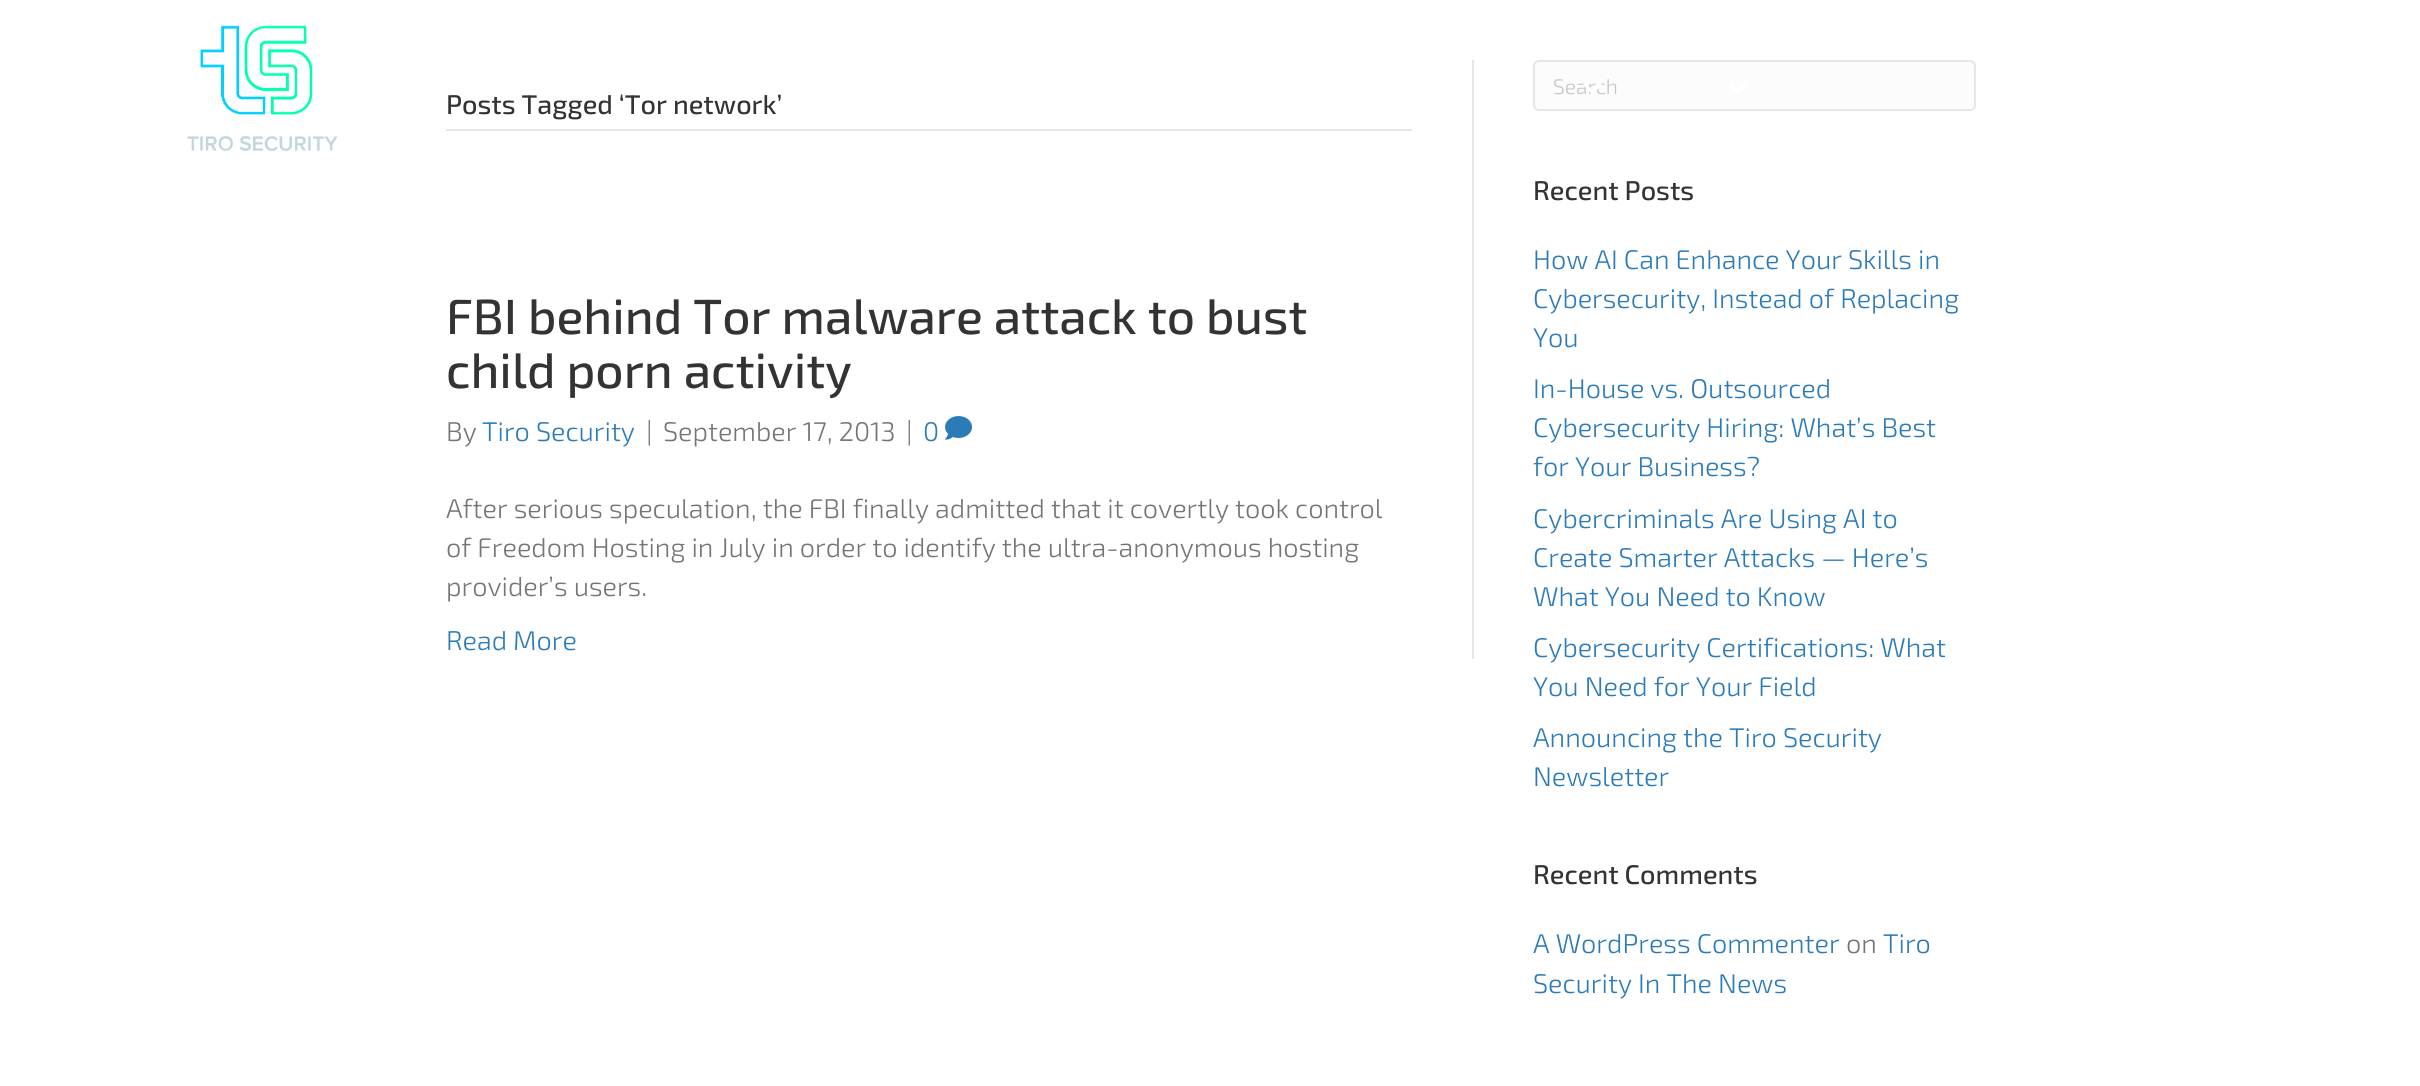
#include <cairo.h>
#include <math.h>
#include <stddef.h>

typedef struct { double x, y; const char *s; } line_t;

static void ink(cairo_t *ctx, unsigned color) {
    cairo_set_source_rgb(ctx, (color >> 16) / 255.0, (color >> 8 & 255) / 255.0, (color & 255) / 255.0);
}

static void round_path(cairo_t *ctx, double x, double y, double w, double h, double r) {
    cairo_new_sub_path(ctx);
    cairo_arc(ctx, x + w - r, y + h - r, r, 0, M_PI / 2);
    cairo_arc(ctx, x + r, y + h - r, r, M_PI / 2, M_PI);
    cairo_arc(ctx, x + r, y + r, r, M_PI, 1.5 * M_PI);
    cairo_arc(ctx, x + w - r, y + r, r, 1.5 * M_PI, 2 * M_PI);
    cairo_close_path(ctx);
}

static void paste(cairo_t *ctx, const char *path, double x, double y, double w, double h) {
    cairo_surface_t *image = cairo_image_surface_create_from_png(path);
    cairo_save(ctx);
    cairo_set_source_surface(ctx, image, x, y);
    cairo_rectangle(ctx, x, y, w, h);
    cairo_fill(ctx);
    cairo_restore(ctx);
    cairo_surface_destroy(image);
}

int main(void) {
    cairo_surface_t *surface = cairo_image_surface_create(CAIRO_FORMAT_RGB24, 2420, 1086);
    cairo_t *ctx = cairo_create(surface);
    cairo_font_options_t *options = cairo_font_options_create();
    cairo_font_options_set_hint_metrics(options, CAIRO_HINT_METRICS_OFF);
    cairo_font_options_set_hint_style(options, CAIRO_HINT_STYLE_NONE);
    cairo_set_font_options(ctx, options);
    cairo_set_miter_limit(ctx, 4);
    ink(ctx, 0xFFFFFF);
    cairo_paint(ctx);
    paste(ctx, "media/1.png", 187, 25, 151, 127);
    ink(ctx, 0xFCFCFC);
    round_path(ctx, 1534, 61, 441, 49, 5);
    cairo_fill_preserve(ctx);
    ink(ctx, 0xE6E6E6);
    cairo_stroke(ctx);
    cairo_select_font_face(ctx, "Exo 2 Light", CAIRO_FONT_SLANT_NORMAL, CAIRO_FONT_WEIGHT_NORMAL);
    cairo_set_font_size(ctx, 21);
    ink(ctx, 0xC6C6C6);
    cairo_move_to(ctx, 1553, 94);
    cairo_show_text(ctx, "Search");
    ink(ctx, 0xFFFFFF);
    cairo_new_path(ctx);
    cairo_move_to(ctx, 1600, 82.5);
    cairo_line_to(ctx, 1602, 85);
    cairo_line_to(ctx, 1592.5, 94.5);
    cairo_line_to(ctx, 1590.5, 92.5);
    cairo_close_path(ctx);
    cairo_fill(ctx);
    cairo_new_path(ctx);
    cairo_move_to(ctx, 1585, 82.5);
    cairo_line_to(ctx, 1594.5, 92.5);
    cairo_line_to(ctx, 1592.5, 94.5);
    cairo_line_to(ctx, 1583, 85);
    cairo_close_path(ctx);
    cairo_fill(ctx);
    cairo_new_path(ctx);
    cairo_move_to(ctx, 1745, 82.5);
    cairo_line_to(ctx, 1747, 85);
    cairo_line_to(ctx, 1737.5, 94.5);
    cairo_line_to(ctx, 1735.5, 92.5);
    cairo_close_path(ctx);
    cairo_fill(ctx);
    cairo_new_path(ctx);
    cairo_move_to(ctx, 1730, 82.5);
    cairo_line_to(ctx, 1739.5, 92.5);
    cairo_line_to(ctx, 1737.5, 94.5);
    cairo_line_to(ctx, 1728, 85);
    cairo_close_path(ctx);
    cairo_fill(ctx);
    ink(ctx, 0xE6E6E6);
    cairo_rectangle(ctx, 1472, 60, 2, 599);
    cairo_fill(ctx);
    cairo_rectangle(ctx, 446, 129, 966, 2);
    cairo_fill(ctx);
    cairo_select_font_face(ctx, "Exo 2 Medium", CAIRO_FONT_SLANT_NORMAL, CAIRO_FONT_WEIGHT_NORMAL);
    cairo_set_font_size(ctx, 27);
    ink(ctx, 0x333333);
    cairo_move_to(ctx, 446, 114);
    cairo_show_text(ctx, "Posts Tagged ‘Tor network’");
    cairo_set_font_size(ctx, 49.5);
    cairo_move_to(ctx, 446, 334);
    cairo_show_text(ctx, "FBI behind Tor malware attack to bust");
    cairo_move_to(ctx, 446, 388);
    cairo_show_text(ctx, "child porn activity");
    cairo_select_font_face(ctx, "Exo 2 Light", CAIRO_FONT_SLANT_NORMAL, CAIRO_FONT_WEIGHT_NORMAL);
    cairo_set_font_size(ctx, 27);
    ink(ctx, 0x757575);
    cairo_move_to(ctx, 446, 441);
    cairo_show_text(ctx, "By");
    ink(ctx, 0x2B7BB9);
    cairo_move_to(ctx, 482, 441);
    cairo_show_text(ctx, "Tiro Security");
    ink(ctx, 0x757575);
    {
        static const line_t items[] = {
            {646, 441, "|"},
            {663, 441, "September 17, 2013"},
            {906, 441, "|"},
        };
        for (size_t i = 0; i < sizeof items / sizeof *items; i++) {
            cairo_move_to(ctx, items[i].x, items[i].y);
            cairo_show_text(ctx, items[i].s);
        }
    }
    ink(ctx, 0x2B7BB9);
    cairo_move_to(ctx, 923, 441);
    cairo_show_text(ctx, "0");
    paste(ctx, "media/2.png", 945, 416, 27, 24);
    ink(ctx, 0x757575);
    {
        static const line_t items[] = {
            {446, 518, "After serious speculation, the FBI finally admitted that it covertly took control"},
            {446, 557, "of Freedom Hosting in July in order to identify the ultra-anonymous hosting"},
            {446, 596, "provider’s users."},
        };
        for (size_t i = 0; i < sizeof items / sizeof *items; i++) {
            cairo_move_to(ctx, items[i].x, items[i].y);
            cairo_show_text(ctx, items[i].s);
        }
    }
    ink(ctx, 0x2B7BB9);
    cairo_move_to(ctx, 446, 650);
    cairo_show_text(ctx, "Read More");
    cairo_select_font_face(ctx, "Exo 2 Medium", CAIRO_FONT_SLANT_NORMAL, CAIRO_FONT_WEIGHT_NORMAL);
    ink(ctx, 0x333333);
    cairo_move_to(ctx, 1533, 200);
    cairo_show_text(ctx, "Recent Posts");
    cairo_select_font_face(ctx, "Exo 2 Light", CAIRO_FONT_SLANT_NORMAL, CAIRO_FONT_WEIGHT_NORMAL);
    ink(ctx, 0x2B7BB9);
    {
        static const line_t items[] = {
            {1533, 269, "How AI Can Enhance Your Skills in"},
            {1533, 308, "Cybersecurity, Instead of Replacing"},
            {1533, 347, "You"},
            {1533, 398, "In-House vs. Outsourced"},
            {1533, 437, "Cybersecurity Hiring: What’s Best"},
            {1533, 476, "for Your Business?"},
            {1533, 528, "Cybercriminals Are Using AI to"},
            {1533, 567, "Create Smarter Attacks — Here’s"},
            {1533, 606, "What You Need to Know"},
            {1533, 657, "Cybersecurity Certifications: What"},
            {1533, 696, "You Need for Your Field"},
            {1533, 747, "Announcing the Tiro Security"},
            {1533, 786, "Newsletter"},
        };
        for (size_t i = 0; i < sizeof items / sizeof *items; i++) {
            cairo_move_to(ctx, items[i].x, items[i].y);
            cairo_show_text(ctx, items[i].s);
        }
    }
    cairo_select_font_face(ctx, "Exo 2 Medium", CAIRO_FONT_SLANT_NORMAL, CAIRO_FONT_WEIGHT_NORMAL);
    ink(ctx, 0x333333);
    cairo_move_to(ctx, 1533, 884);
    cairo_show_text(ctx, "Recent Comments");
    cairo_select_font_face(ctx, "Exo 2 Light", CAIRO_FONT_SLANT_NORMAL, CAIRO_FONT_WEIGHT_NORMAL);
    ink(ctx, 0x2B7BB9);
    cairo_move_to(ctx, 1533, 953);
    cairo_show_text(ctx, "A WordPress Commenter");
    ink(ctx, 0x757575);
    cairo_move_to(ctx, 1846, 953);
    cairo_show_text(ctx, "on");
    ink(ctx, 0x2B7BB9);
    cairo_move_to(ctx, 1883, 953);
    cairo_show_text(ctx, "Tiro");
    cairo_move_to(ctx, 1533, 993);
    cairo_show_text(ctx, "Security In The News");
    cairo_surface_write_to_png(surface, "image.png");
    cairo_font_options_destroy(options);
    cairo_destroy(ctx);
    cairo_surface_destroy(surface);
    return 0;
}
